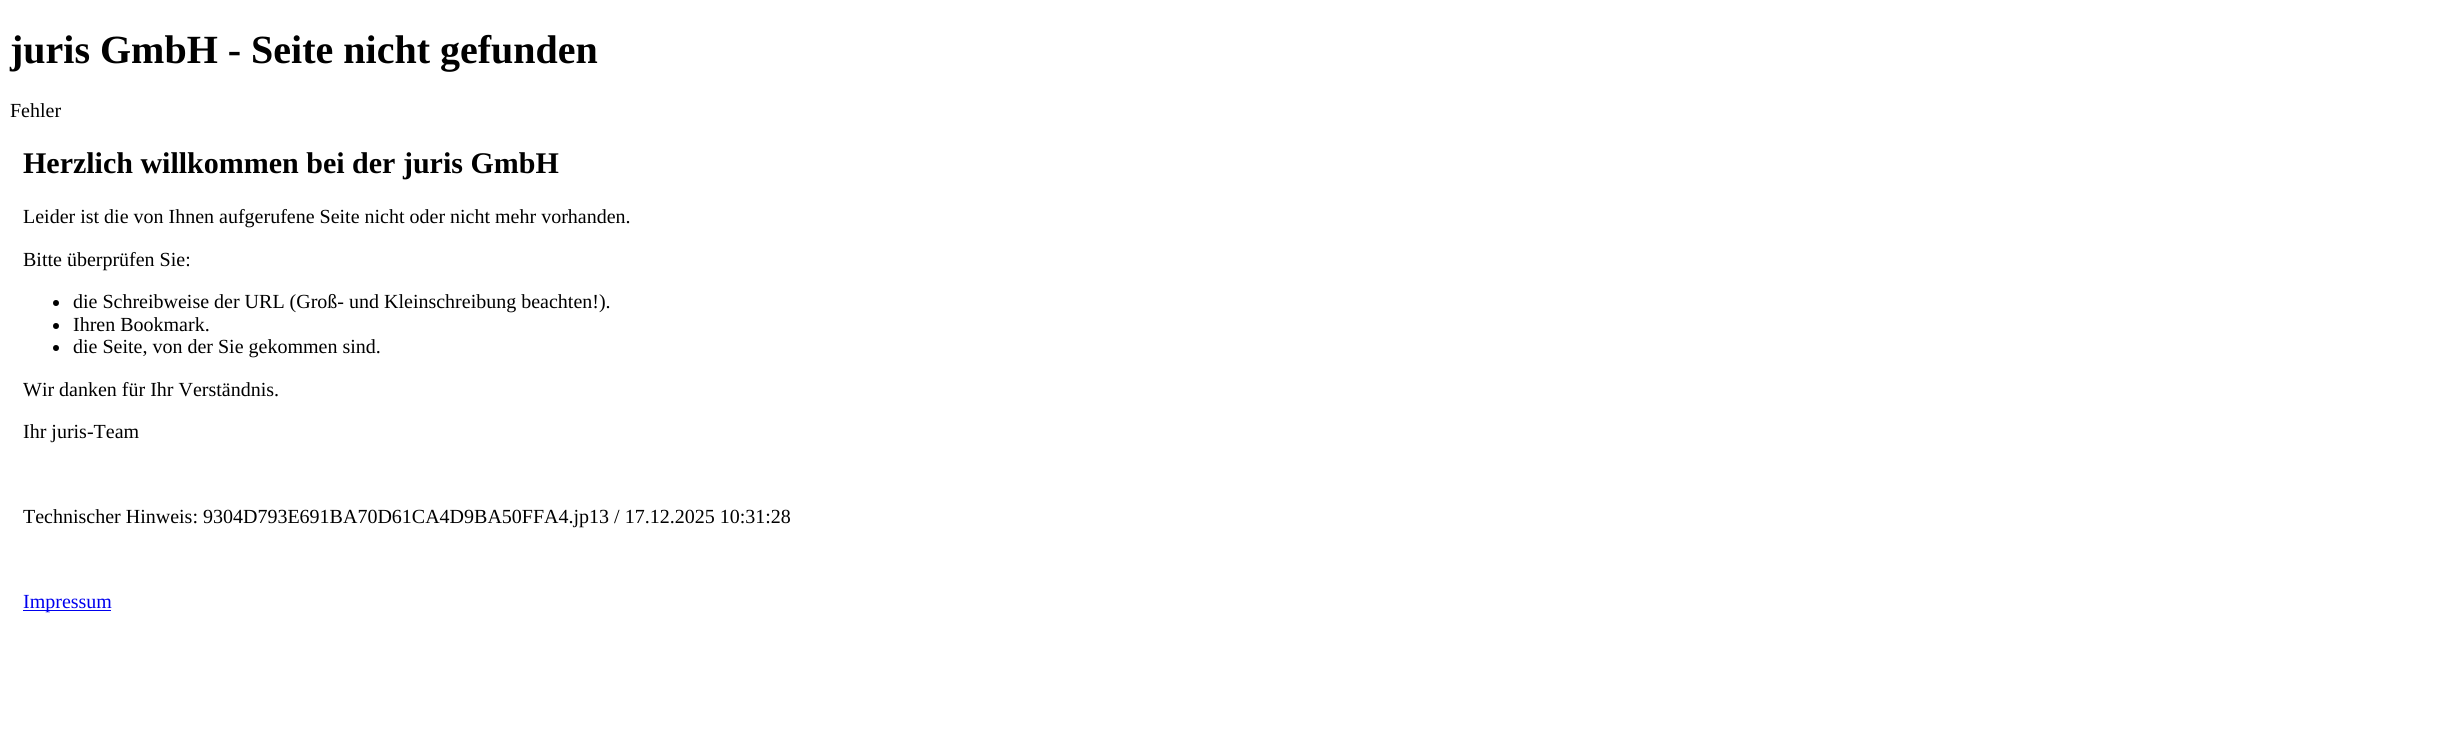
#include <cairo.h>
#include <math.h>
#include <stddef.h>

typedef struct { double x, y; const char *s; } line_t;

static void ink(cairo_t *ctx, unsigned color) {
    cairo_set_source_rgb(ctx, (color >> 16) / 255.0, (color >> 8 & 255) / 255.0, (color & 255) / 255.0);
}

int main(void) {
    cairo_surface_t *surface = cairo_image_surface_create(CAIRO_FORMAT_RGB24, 2439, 753);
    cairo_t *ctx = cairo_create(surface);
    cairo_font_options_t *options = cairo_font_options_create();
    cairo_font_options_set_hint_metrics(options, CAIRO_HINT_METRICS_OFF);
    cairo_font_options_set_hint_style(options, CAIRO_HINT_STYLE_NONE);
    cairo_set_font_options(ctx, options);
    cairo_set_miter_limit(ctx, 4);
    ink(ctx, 0xFFFFFF);
    cairo_paint(ctx);
    cairo_select_font_face(ctx, "Liberation Serif", CAIRO_FONT_SLANT_NORMAL, CAIRO_FONT_WEIGHT_BOLD);
    cairo_set_font_size(ctx, 40);
    ink(ctx, 0x000000);
    cairo_move_to(ctx, 10, 63);
    cairo_show_text(ctx, "juris GmbH - Seite nicht gefunden");
    cairo_select_font_face(ctx, "Liberation Serif", CAIRO_FONT_SLANT_NORMAL, CAIRO_FONT_WEIGHT_NORMAL);
    cairo_set_font_size(ctx, 20);
    cairo_move_to(ctx, 10, 117);
    cairo_show_text(ctx, "Fehler");
    cairo_select_font_face(ctx, "Liberation Serif", CAIRO_FONT_SLANT_NORMAL, CAIRO_FONT_WEIGHT_BOLD);
    cairo_set_font_size(ctx, 30);
    cairo_move_to(ctx, 23, 173);
    cairo_show_text(ctx, "Herzlich willkommen bei der juris GmbH");
    cairo_select_font_face(ctx, "Liberation Serif", CAIRO_FONT_SLANT_NORMAL, CAIRO_FONT_WEIGHT_NORMAL);
    cairo_set_font_size(ctx, 20);
    cairo_move_to(ctx, 23, 223);
    cairo_show_text(ctx, "Leider ist die von Ihnen aufgerufene Seite nicht oder nicht mehr vorhanden.");
    cairo_move_to(ctx, 23, 266);
    cairo_show_text(ctx, "Bitte überprüfen Sie:");
    cairo_new_path(ctx);
    cairo_arc(ctx, 56, 303, 3, 0, 2 * M_PI);
    cairo_fill(ctx);
    cairo_move_to(ctx, 73, 308);
    cairo_show_text(ctx, "die Schreibweise der URL (Groß- und Kleinschreibung beachten!).");
    cairo_new_path(ctx);
    cairo_arc(ctx, 56, 326, 3, 0, 2 * M_PI);
    cairo_fill(ctx);
    cairo_move_to(ctx, 73, 331);
    cairo_show_text(ctx, "Ihren Bookmark.");
    cairo_new_path(ctx);
    cairo_arc(ctx, 56, 348, 3, 0, 2 * M_PI);
    cairo_fill(ctx);
    {
        static const line_t items[] = {
            {73, 353, "die Seite, von der Sie gekommen sind."},
            {23, 396, "Wir danken für Ihr Verständnis."},
            {23, 438, "Ihr juris-Team"},
            {23, 523, "Technischer Hinweis: 9304D793E691BA70D61CA4D9BA50FFA4.jp13 / 17.12.2025 10:31:28"},
        };
        for (size_t i = 0; i < sizeof items / sizeof *items; i++) {
            cairo_move_to(ctx, items[i].x, items[i].y);
            cairo_show_text(ctx, items[i].s);
        }
    }
    ink(ctx, 0x0000EE);
    cairo_rectangle(ctx, 23, 610, 88, 1);
    cairo_fill(ctx);
    cairo_move_to(ctx, 23, 608);
    cairo_show_text(ctx, "Impressum");
    cairo_surface_write_to_png(surface, "image.png");
    cairo_font_options_destroy(options);
    cairo_destroy(ctx);
    cairo_surface_destroy(surface);
    return 0;
}
